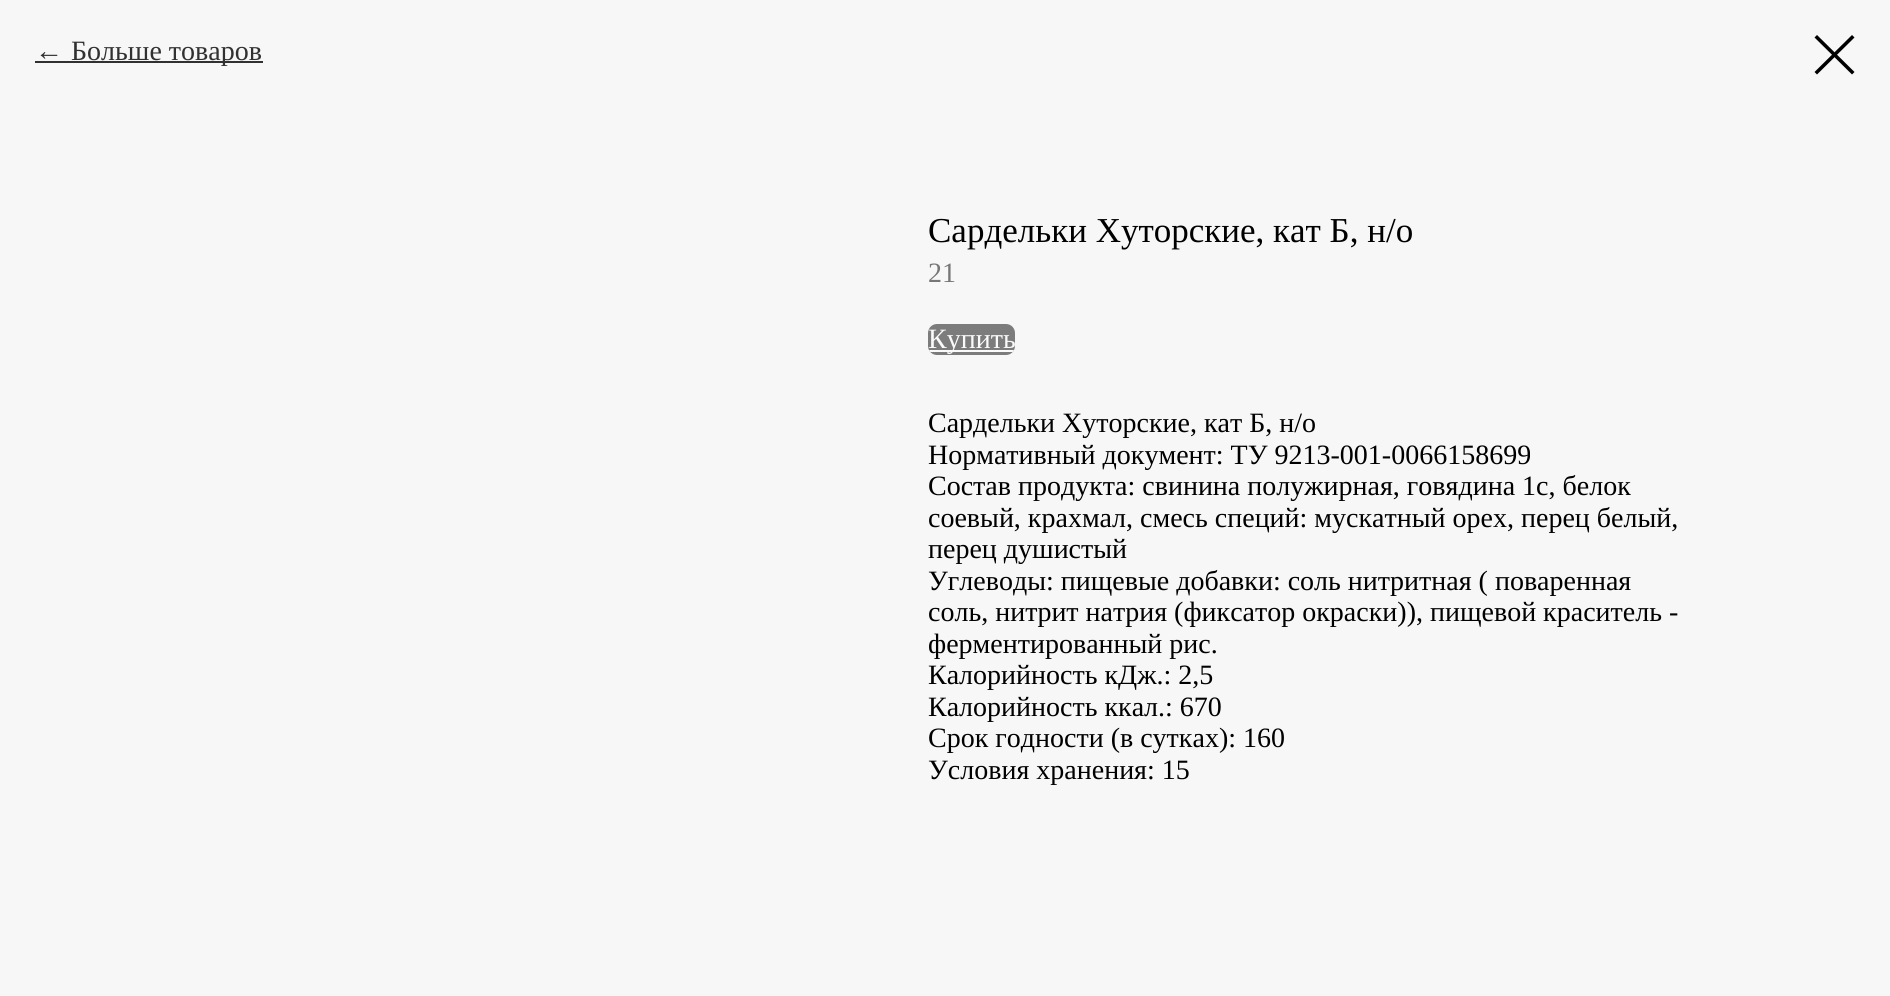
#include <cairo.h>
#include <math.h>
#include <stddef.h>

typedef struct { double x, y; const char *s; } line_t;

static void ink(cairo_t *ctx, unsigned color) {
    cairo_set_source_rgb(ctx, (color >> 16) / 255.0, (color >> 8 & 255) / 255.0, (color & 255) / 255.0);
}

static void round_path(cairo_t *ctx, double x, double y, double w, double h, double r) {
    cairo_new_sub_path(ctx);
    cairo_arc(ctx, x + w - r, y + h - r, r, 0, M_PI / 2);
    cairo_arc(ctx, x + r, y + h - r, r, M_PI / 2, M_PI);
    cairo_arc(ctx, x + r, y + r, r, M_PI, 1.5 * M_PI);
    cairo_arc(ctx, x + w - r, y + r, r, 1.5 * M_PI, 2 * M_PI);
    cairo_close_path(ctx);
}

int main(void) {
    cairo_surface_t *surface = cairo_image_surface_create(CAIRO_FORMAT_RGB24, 1890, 996);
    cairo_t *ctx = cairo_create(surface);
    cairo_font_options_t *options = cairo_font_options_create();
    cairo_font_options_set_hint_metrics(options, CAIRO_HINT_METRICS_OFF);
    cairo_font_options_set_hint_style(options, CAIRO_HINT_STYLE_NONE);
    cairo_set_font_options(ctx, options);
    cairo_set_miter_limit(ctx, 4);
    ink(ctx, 0xF7F7F7);
    cairo_paint(ctx);
    ink(ctx, 0x313131);
    cairo_rectangle(ctx, 35, 61, 228, 2);
    cairo_fill(ctx);
    cairo_select_font_face(ctx, "Liberation Sans", CAIRO_FONT_SLANT_NORMAL, CAIRO_FONT_WEIGHT_NORMAL);
    cairo_set_font_size(ctx, 28);
    cairo_move_to(ctx, 35, 60);
    cairo_show_text(ctx, "←");
    cairo_select_font_face(ctx, "Liberation Serif", CAIRO_FONT_SLANT_NORMAL, CAIRO_FONT_WEIGHT_NORMAL);
    cairo_move_to(ctx, 71, 60);
    cairo_show_text(ctx, "Больше товаров");
    ink(ctx, 0x000000);
    cairo_set_fill_rule(ctx, CAIRO_FILL_RULE_EVEN_ODD);
    cairo_new_path(ctx);
    cairo_move_to(ctx, 1814.5, 37.5);
    cairo_line_to(ctx, 1817, 35);
    cairo_line_to(ctx, 1854.5, 72);
    cairo_line_to(ctx, 1852, 74.5);
    cairo_close_path(ctx);
    cairo_fill(ctx);
    cairo_new_path(ctx);
    cairo_move_to(ctx, 1852, 35);
    cairo_line_to(ctx, 1854.5, 37.5);
    cairo_line_to(ctx, 1817, 74.5);
    cairo_line_to(ctx, 1814.5, 72);
    cairo_close_path(ctx);
    cairo_fill(ctx);
    cairo_set_font_size(ctx, 35);
    cairo_move_to(ctx, 928, 242);
    cairo_show_text(ctx, "Сардельки Хуторские, кат Б, н/о");
    cairo_set_font_size(ctx, 28);
    ink(ctx, 0x777777);
    cairo_move_to(ctx, 928, 282);
    cairo_show_text(ctx, "21");
    ink(ctx, 0x7C7C7C);
    round_path(ctx, 928, 324, 87, 31, 9);
    cairo_fill(ctx);
    cairo_save(ctx);
    cairo_set_fill_rule(ctx, CAIRO_FILL_RULE_WINDING);
    round_path(ctx, 928, 324, 87, 31, 9);
    cairo_clip(ctx);
    ink(ctx, 0xFAFAFA);
    cairo_rectangle(ctx, 928, 350, 87, 2);
    cairo_fill(ctx);
    cairo_move_to(ctx, 928, 348);
    cairo_show_text(ctx, "Купить");
    cairo_restore(ctx);
    ink(ctx, 0x000000);
    {
        static const line_t items[] = {
            {928, 432, "Сардельки Хуторские, кат Б, н/о"},
            {928, 464, "Нормативный документ: ТУ 9213-001-0066158699"},
            {928, 495, "Состав продукта: свинина полужирная, говядина 1с, белок"},
            {928, 527, "соевый, крахмал, смесь специй: мускатный орех, перец белый,"},
            {928, 558, "перец душистый"},
            {928, 590, "Углеводы: пищевые добавки: соль нитритная ( поваренная"},
            {928, 621, "соль, нитрит натрия (фиксатор окраски)), пищевой краситель -"},
            {928, 653, "ферментированный рис."},
            {928, 684, "Калорийность кДж.: 2,5"},
            {928, 716, "Калорийность ккал.: 670"},
            {928, 747, "Срок годности (в сутках): 160"},
            {928, 779, "Условия хранения: 15"},
        };
        for (size_t i = 0; i < sizeof items / sizeof *items; i++) {
            cairo_move_to(ctx, items[i].x, items[i].y);
            cairo_show_text(ctx, items[i].s);
        }
    }
    cairo_surface_write_to_png(surface, "image.png");
    cairo_font_options_destroy(options);
    cairo_destroy(ctx);
    cairo_surface_destroy(surface);
    return 0;
}
